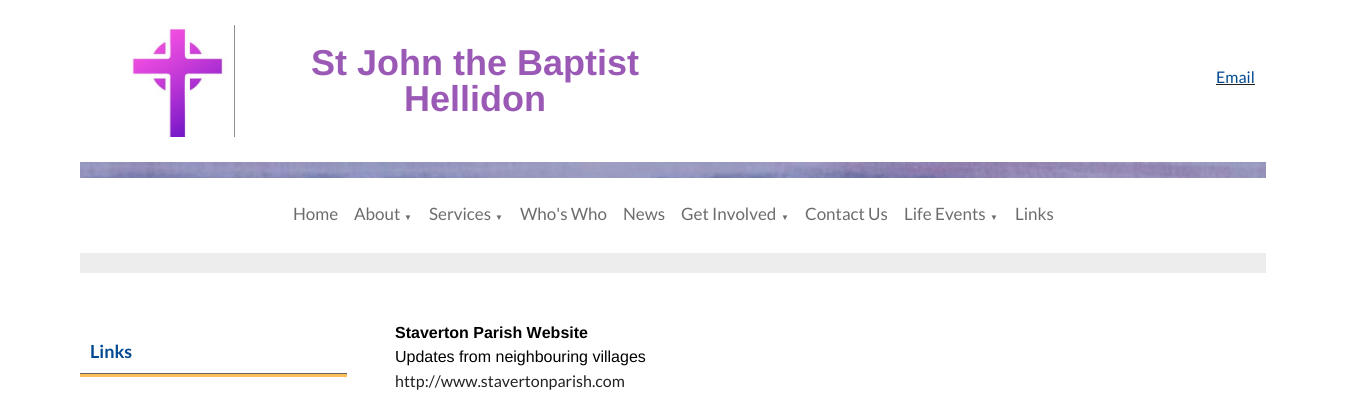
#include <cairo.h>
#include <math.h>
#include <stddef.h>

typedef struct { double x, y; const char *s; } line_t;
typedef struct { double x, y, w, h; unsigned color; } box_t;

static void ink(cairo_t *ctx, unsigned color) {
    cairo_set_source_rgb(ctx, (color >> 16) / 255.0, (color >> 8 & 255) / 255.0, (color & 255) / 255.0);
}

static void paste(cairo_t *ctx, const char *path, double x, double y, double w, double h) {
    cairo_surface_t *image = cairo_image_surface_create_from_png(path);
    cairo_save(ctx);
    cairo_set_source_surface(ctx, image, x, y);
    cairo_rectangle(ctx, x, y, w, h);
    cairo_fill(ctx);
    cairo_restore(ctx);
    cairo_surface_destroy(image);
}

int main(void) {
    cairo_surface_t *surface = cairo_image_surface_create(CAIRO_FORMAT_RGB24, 1346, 411);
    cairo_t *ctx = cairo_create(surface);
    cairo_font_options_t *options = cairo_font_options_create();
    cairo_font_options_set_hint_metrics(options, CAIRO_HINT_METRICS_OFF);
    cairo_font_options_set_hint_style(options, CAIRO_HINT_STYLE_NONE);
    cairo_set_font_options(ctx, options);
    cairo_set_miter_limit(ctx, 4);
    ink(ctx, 0xFFFFFF);
    cairo_paint(ctx);
    paste(ctx, "media/1.png", 129, 25, 106, 112);
    cairo_select_font_face(ctx, "Liberation Sans", CAIRO_FONT_SLANT_NORMAL, CAIRO_FONT_WEIGHT_BOLD);
    cairo_set_font_size(ctx, 36);
    ink(ctx, 0x9B59B6);
    cairo_move_to(ctx, 311, 75);
    cairo_show_text(ctx, "St John the Baptist");
    cairo_move_to(ctx, 404, 111);
    cairo_show_text(ctx, "Hellidon");
    cairo_select_font_face(ctx, "Lato", CAIRO_FONT_SLANT_NORMAL, CAIRO_FONT_WEIGHT_NORMAL);
    cairo_set_font_size(ctx, 16);
    ink(ctx, 0x014991);
    cairo_move_to(ctx, 1216, 83);
    cairo_show_text(ctx, "Email");
    ink(ctx, 0x222222);
    cairo_rectangle(ctx, 1216, 84, 39, 1);
    cairo_fill(ctx);
    paste(ctx, "media/2.png", 80, 162, 1186, 16);
    cairo_set_font_size(ctx, 17);
    ink(ctx, 0x6C6C6C);
    cairo_move_to(ctx, 293, 220);
    cairo_show_text(ctx, "Home");
    cairo_move_to(ctx, 354, 220);
    cairo_show_text(ctx, "About");
    cairo_select_font_face(ctx, "Liberation Serif", CAIRO_FONT_SLANT_NORMAL, CAIRO_FONT_WEIGHT_NORMAL);
    cairo_set_font_size(ctx, 8);
    cairo_move_to(ctx, 404, 220);
    cairo_show_text(ctx, "▼");
    cairo_select_font_face(ctx, "Lato", CAIRO_FONT_SLANT_NORMAL, CAIRO_FONT_WEIGHT_NORMAL);
    cairo_set_font_size(ctx, 17);
    cairo_move_to(ctx, 429, 220);
    cairo_show_text(ctx, "Services");
    cairo_select_font_face(ctx, "Liberation Serif", CAIRO_FONT_SLANT_NORMAL, CAIRO_FONT_WEIGHT_NORMAL);
    cairo_set_font_size(ctx, 8);
    cairo_move_to(ctx, 495, 220);
    cairo_show_text(ctx, "▼");
    cairo_select_font_face(ctx, "Lato", CAIRO_FONT_SLANT_NORMAL, CAIRO_FONT_WEIGHT_NORMAL);
    cairo_set_font_size(ctx, 17);
    {
        static const line_t items[] = {
            {520, 220, "Who's Who"},
            {623, 220, "News"},
            {681, 220, "Get Involved"},
        };
        for (size_t i = 0; i < sizeof items / sizeof *items; i++) {
            cairo_move_to(ctx, items[i].x, items[i].y);
            cairo_show_text(ctx, items[i].s);
        }
    }
    cairo_select_font_face(ctx, "Liberation Serif", CAIRO_FONT_SLANT_NORMAL, CAIRO_FONT_WEIGHT_NORMAL);
    cairo_set_font_size(ctx, 8);
    cairo_move_to(ctx, 781, 220);
    cairo_show_text(ctx, "▼");
    cairo_select_font_face(ctx, "Lato", CAIRO_FONT_SLANT_NORMAL, CAIRO_FONT_WEIGHT_NORMAL);
    cairo_set_font_size(ctx, 17);
    cairo_move_to(ctx, 805, 220);
    cairo_show_text(ctx, "Contact Us");
    cairo_move_to(ctx, 904, 220);
    cairo_show_text(ctx, "Life Events");
    cairo_select_font_face(ctx, "Liberation Serif", CAIRO_FONT_SLANT_NORMAL, CAIRO_FONT_WEIGHT_NORMAL);
    cairo_set_font_size(ctx, 8);
    cairo_move_to(ctx, 990, 220);
    cairo_show_text(ctx, "▼");
    cairo_select_font_face(ctx, "Lato", CAIRO_FONT_SLANT_NORMAL, CAIRO_FONT_WEIGHT_NORMAL);
    cairo_set_font_size(ctx, 17);
    cairo_move_to(ctx, 1015, 220);
    cairo_show_text(ctx, "Links");
    {
        static const box_t items[] = {
            {80, 253, 1186, 20, 0xEDEDED},
            {80, 374, 267, 3, 0xF9C059},
            {80, 373, 267, 1, 0x626262},
        };
        for (size_t i = 0; i < sizeof items / sizeof *items; i++) {
            ink(ctx, items[i].color);
            cairo_rectangle(ctx, items[i].x, items[i].y, items[i].w, items[i].h);
            cairo_fill(ctx);
        }
    }
    cairo_select_font_face(ctx, "Lato", CAIRO_FONT_SLANT_NORMAL, CAIRO_FONT_WEIGHT_BOLD);
    cairo_set_font_size(ctx, 18);
    ink(ctx, 0x014991);
    cairo_move_to(ctx, 90, 358);
    cairo_show_text(ctx, "Links");
    cairo_select_font_face(ctx, "Liberation Sans", CAIRO_FONT_SLANT_NORMAL, CAIRO_FONT_WEIGHT_BOLD);
    cairo_set_font_size(ctx, 16);
    ink(ctx, 0x000000);
    cairo_move_to(ctx, 395, 338);
    cairo_show_text(ctx, "Staverton Parish Website");
    cairo_select_font_face(ctx, "Liberation Sans", CAIRO_FONT_SLANT_NORMAL, CAIRO_FONT_WEIGHT_NORMAL);
    cairo_move_to(ctx, 395, 362);
    cairo_show_text(ctx, "Updates from neighbouring villages");
    cairo_select_font_face(ctx, "Lato", CAIRO_FONT_SLANT_NORMAL, CAIRO_FONT_WEIGHT_NORMAL);
    ink(ctx, 0x222222);
    cairo_move_to(ctx, 395, 387);
    cairo_show_text(ctx, "http://www.stavertonparish.com");
    cairo_surface_write_to_png(surface, "image.png");
    cairo_font_options_destroy(options);
    cairo_destroy(ctx);
    cairo_surface_destroy(surface);
    return 0;
}
